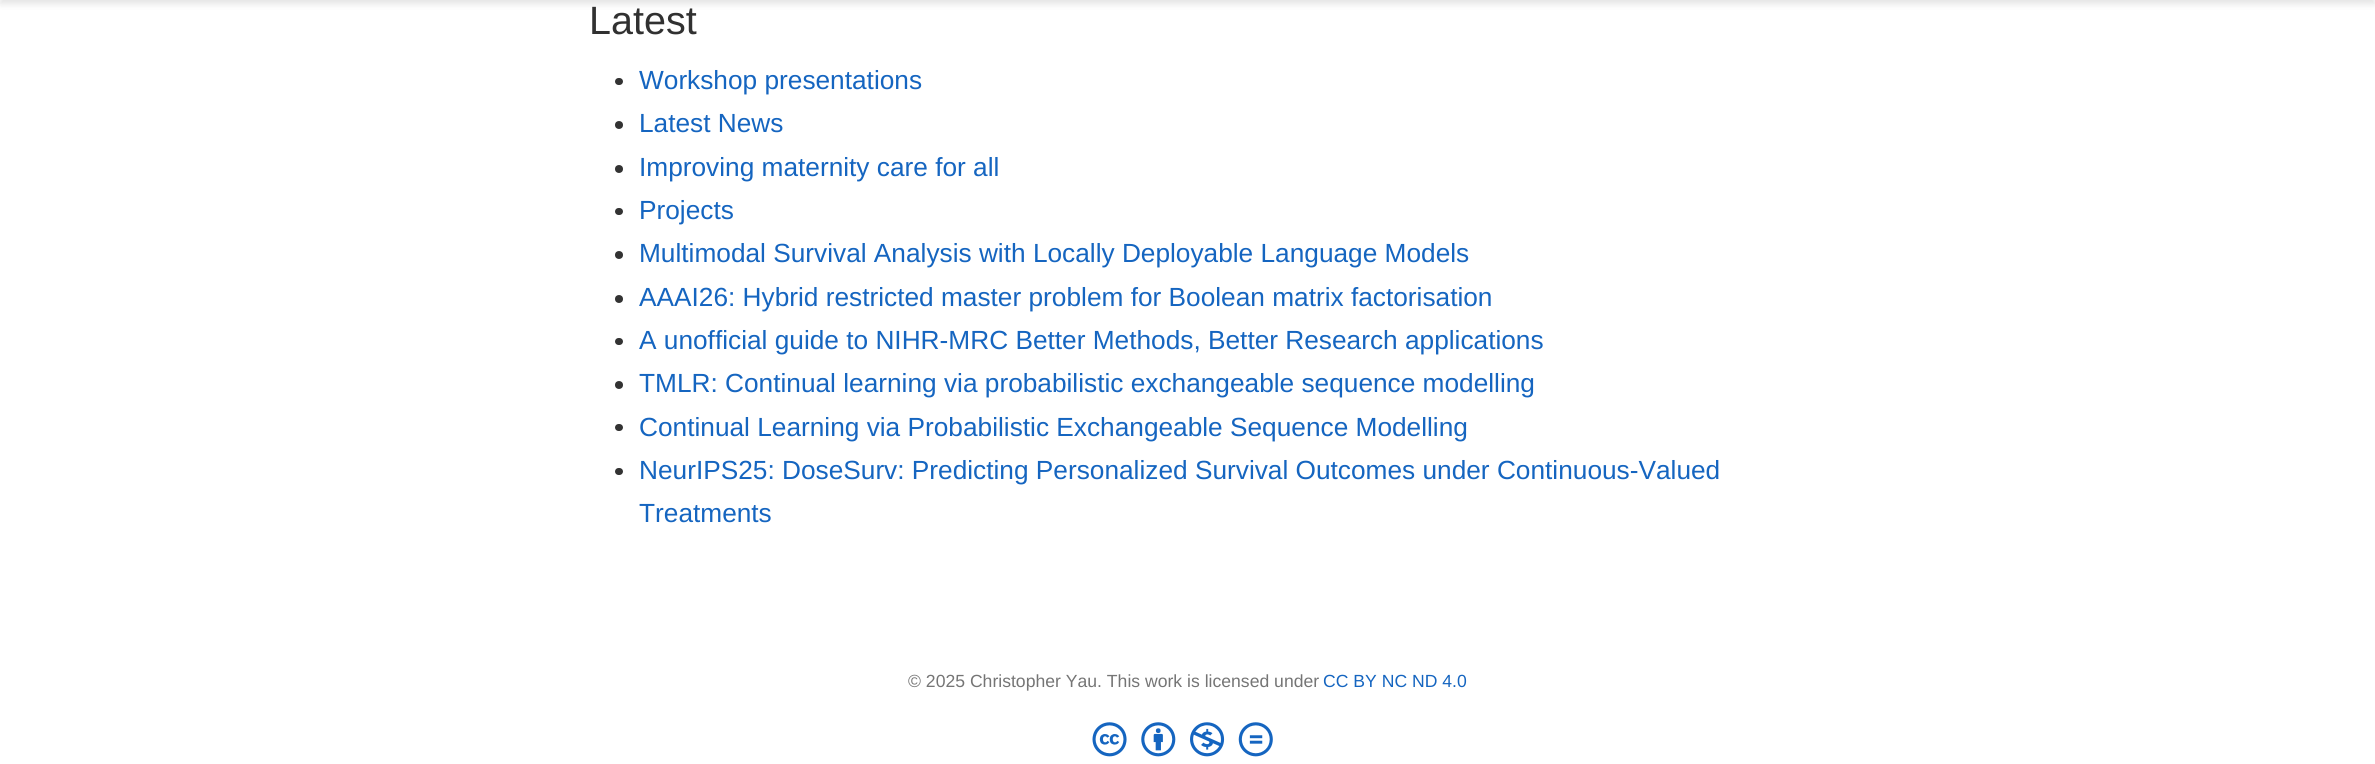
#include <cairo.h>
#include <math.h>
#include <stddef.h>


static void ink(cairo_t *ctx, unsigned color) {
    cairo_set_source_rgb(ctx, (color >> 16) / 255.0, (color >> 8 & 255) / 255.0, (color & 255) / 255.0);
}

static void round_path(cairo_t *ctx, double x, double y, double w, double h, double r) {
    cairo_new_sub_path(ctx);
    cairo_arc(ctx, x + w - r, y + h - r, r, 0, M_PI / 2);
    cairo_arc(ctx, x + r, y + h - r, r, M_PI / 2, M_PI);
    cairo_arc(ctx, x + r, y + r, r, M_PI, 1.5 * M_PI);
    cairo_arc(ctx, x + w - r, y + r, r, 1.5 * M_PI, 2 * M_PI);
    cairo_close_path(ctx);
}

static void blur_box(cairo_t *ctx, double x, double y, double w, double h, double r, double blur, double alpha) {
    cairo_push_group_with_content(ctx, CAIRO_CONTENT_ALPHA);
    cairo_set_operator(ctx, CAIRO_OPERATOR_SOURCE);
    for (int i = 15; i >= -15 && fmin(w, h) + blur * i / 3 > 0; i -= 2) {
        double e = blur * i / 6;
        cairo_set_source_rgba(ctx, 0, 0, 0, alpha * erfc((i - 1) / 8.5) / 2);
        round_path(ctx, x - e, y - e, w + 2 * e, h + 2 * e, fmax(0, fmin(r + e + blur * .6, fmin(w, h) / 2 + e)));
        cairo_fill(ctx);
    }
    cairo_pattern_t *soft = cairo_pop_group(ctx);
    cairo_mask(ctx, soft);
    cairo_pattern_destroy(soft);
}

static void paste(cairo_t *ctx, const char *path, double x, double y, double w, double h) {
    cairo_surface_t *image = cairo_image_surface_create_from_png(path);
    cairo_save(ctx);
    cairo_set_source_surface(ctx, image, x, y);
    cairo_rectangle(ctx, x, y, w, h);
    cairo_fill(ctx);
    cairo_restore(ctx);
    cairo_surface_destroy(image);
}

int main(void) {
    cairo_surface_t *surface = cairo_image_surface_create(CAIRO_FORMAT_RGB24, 2375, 764);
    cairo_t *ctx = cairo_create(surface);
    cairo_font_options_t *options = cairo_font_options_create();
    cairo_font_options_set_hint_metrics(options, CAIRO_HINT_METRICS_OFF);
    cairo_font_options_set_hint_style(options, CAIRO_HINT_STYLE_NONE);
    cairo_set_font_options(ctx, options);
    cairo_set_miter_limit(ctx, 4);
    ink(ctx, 0xFFFFFF);
    cairo_paint(ctx);
    ink(ctx, 0x000000);
    blur_box(ctx, 0, -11, 2375, 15, 0, 3.5, 0.11);
    cairo_select_font_face(ctx, "Liberation Sans", CAIRO_FONT_SLANT_NORMAL, CAIRO_FONT_WEIGHT_NORMAL);
    cairo_set_font_size(ctx, 39.5);
    ink(ctx, 0x313131);
    cairo_move_to(ctx, 589, 34);
    cairo_show_text(ctx, "Latest");
    ink(ctx, 0x333333);
    round_path(ctx, 615, 78, 8, 7, 3.5);
    cairo_fill(ctx);
    cairo_set_font_size(ctx, 26.25);
    ink(ctx, 0x1565C0);
    cairo_move_to(ctx, 639, 89);
    cairo_show_text(ctx, "Workshop presentations");
    ink(ctx, 0x333333);
    cairo_new_path(ctx);
    cairo_arc(ctx, 619, 125, 4, 0, 2 * M_PI);
    cairo_fill(ctx);
    ink(ctx, 0x1565C0);
    cairo_move_to(ctx, 639, 132);
    cairo_show_text(ctx, "Latest News");
    ink(ctx, 0x333333);
    cairo_new_path(ctx);
    cairo_arc(ctx, 619, 169, 4, 0, 2 * M_PI);
    cairo_fill(ctx);
    ink(ctx, 0x1565C0);
    cairo_move_to(ctx, 639, 176);
    cairo_show_text(ctx, "Improving maternity care for all");
    ink(ctx, 0x333333);
    round_path(ctx, 615, 208, 8, 7, 3.5);
    cairo_fill(ctx);
    ink(ctx, 0x1565C0);
    cairo_move_to(ctx, 639, 219);
    cairo_show_text(ctx, "Projects");
    ink(ctx, 0x333333);
    cairo_new_path(ctx);
    cairo_arc(ctx, 619, 255, 4, 0, 2 * M_PI);
    cairo_fill(ctx);
    ink(ctx, 0x1565C0);
    cairo_move_to(ctx, 639, 262);
    cairo_show_text(ctx, "Multimodal Survival Analysis with Locally Deployable Language Models");
    ink(ctx, 0x333333);
    cairo_new_path(ctx);
    cairo_arc(ctx, 619, 299, 4, 0, 2 * M_PI);
    cairo_fill(ctx);
    ink(ctx, 0x1565C0);
    cairo_move_to(ctx, 639, 306);
    cairo_show_text(ctx, "AAAI26: Hybrid restricted master problem for Boolean matrix factorisation");
    ink(ctx, 0x333333);
    round_path(ctx, 615, 338, 8, 7, 3.5);
    cairo_fill(ctx);
    ink(ctx, 0x1565C0);
    cairo_move_to(ctx, 639, 349);
    cairo_show_text(ctx, "A unofficial guide to NIHR-MRC Better Methods, Better Research applications");
    ink(ctx, 0x333333);
    cairo_new_path(ctx);
    cairo_arc(ctx, 619, 385, 4, 0, 2 * M_PI);
    cairo_fill(ctx);
    ink(ctx, 0x1565C0);
    cairo_move_to(ctx, 639, 392);
    cairo_show_text(ctx, "TMLR: Continual learning via probabilistic exchangeable sequence modelling");
    ink(ctx, 0x333333);
    round_path(ctx, 615, 424, 8, 7, 3.5);
    cairo_fill(ctx);
    ink(ctx, 0x1565C0);
    cairo_move_to(ctx, 639, 436);
    cairo_show_text(ctx, "Continual Learning via Probabilistic Exchangeable Sequence Modelling");
    ink(ctx, 0x333333);
    round_path(ctx, 615, 468, 8, 7, 3.5);
    cairo_fill(ctx);
    ink(ctx, 0x1565C0);
    cairo_move_to(ctx, 639, 479);
    cairo_show_text(ctx, "NeurIPS25: DoseSurv: Predicting Personalized Survival Outcomes under Continuous-Valued");
    cairo_move_to(ctx, 639, 522);
    cairo_show_text(ctx, "Treatments");
    cairo_set_font_size(ctx, 17.6);
    ink(ctx, 0x757575);
    cairo_move_to(ctx, 908, 687);
    cairo_show_text(ctx, "© 2025 Christopher Yau. This work is licensed under");
    ink(ctx, 0x1565C0);
    cairo_move_to(ctx, 1323, 687);
    cairo_show_text(ctx, "CC BY NC ND 4.0");
    paste(ctx, "media/1.png", 1092, 722, 35, 35);
    paste(ctx, "media/2.png", 1141, 722, 35, 35);
    paste(ctx, "media/3.png", 1190, 722, 35, 35);
    paste(ctx, "media/4.png", 1238, 722, 35, 35);
    cairo_surface_write_to_png(surface, "image.png");
    cairo_font_options_destroy(options);
    cairo_destroy(ctx);
    cairo_surface_destroy(surface);
    return 0;
}
